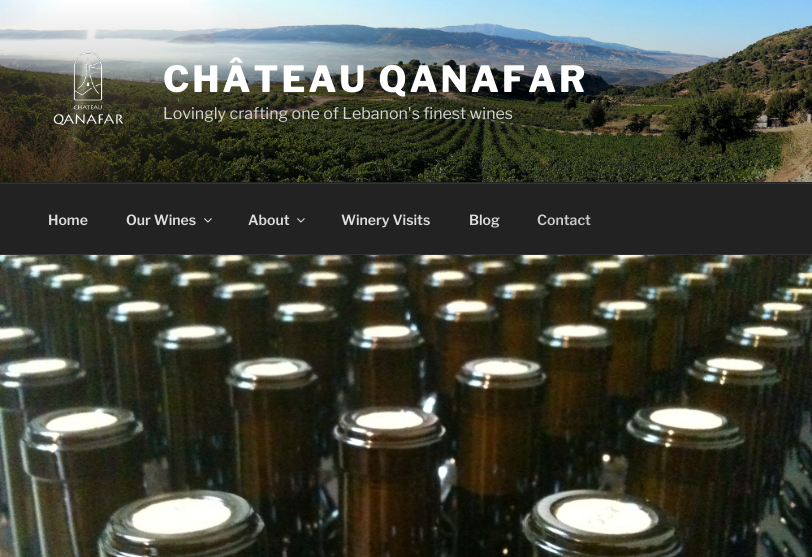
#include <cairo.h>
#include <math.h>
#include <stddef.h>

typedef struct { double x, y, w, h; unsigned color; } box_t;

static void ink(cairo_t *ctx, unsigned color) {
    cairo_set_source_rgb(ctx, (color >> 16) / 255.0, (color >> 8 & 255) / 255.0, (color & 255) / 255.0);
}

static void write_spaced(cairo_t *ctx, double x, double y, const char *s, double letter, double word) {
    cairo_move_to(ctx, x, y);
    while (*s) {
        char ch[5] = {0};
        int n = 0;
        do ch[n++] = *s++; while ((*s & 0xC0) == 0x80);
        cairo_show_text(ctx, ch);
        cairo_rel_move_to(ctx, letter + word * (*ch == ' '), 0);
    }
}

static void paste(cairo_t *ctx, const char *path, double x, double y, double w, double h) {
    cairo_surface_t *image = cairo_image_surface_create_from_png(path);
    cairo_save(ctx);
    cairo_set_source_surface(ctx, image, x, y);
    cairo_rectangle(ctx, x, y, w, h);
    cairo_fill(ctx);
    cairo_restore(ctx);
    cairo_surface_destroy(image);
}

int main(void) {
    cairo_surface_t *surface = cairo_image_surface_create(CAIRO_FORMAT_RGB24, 812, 557);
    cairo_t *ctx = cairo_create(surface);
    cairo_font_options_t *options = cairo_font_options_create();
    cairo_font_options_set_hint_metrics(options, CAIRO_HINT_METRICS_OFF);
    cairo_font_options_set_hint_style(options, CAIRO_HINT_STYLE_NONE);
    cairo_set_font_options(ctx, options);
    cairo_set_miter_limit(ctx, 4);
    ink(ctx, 0xFFFFFF);
    cairo_paint(ctx);
    ink(ctx, 0x262626);
    cairo_rectangle(ctx, 0, 182, 812, 1);
    cairo_fill(ctx);
    paste(ctx, "media/1.png", 0, 0, 812, 182);
    paste(ctx, "media/2.png", 53, 52, 70, 74);
    cairo_select_font_face(ctx, "Libre Franklin ExtraBold", CAIRO_FONT_SLANT_NORMAL, CAIRO_FONT_WEIGHT_NORMAL);
    cairo_set_font_size(ctx, 36);
    ink(ctx, 0xFFFFFF);
    write_spaced(ctx, 163, 92, "CHÂTEAU QANAFAR", 2.9, 0);
    cairo_select_font_face(ctx, "Libre Franklin", CAIRO_FONT_SLANT_NORMAL, CAIRO_FONT_WEIGHT_NORMAL);
    cairo_set_font_size(ctx, 16);
    ink(ctx, 0xD5D6D2);
    cairo_move_to(ctx, 163, 119);
    cairo_show_text(ctx, "Lovingly crafting one of Lebanon's finest wines");
    {
        static const box_t items[] = {
            {0, 184, 812, 70, 0x222222},
            {0, 183, 812, 1, 0x333333},
            {0, 254, 812, 1, 0x333333},
        };
        for (size_t i = 0; i < sizeof items / sizeof *items; i++) {
            ink(ctx, items[i].color);
            cairo_rectangle(ctx, items[i].x, items[i].y, items[i].w, items[i].h);
            cairo_fill(ctx);
        }
    }
    cairo_select_font_face(ctx, "Libre Franklin SemiBold", CAIRO_FONT_SLANT_NORMAL, CAIRO_FONT_WEIGHT_NORMAL);
    cairo_set_font_size(ctx, 14);
    ink(ctx, 0xDDDDDD);
    cairo_move_to(ctx, 48, 225);
    cairo_show_text(ctx, "Home");
    cairo_move_to(ctx, 126, 225);
    cairo_show_text(ctx, "Our Wines");
    paste(ctx, "media/3.png", 204, 218, 8, 5);
    cairo_move_to(ctx, 248, 225);
    cairo_show_text(ctx, "About");
    paste(ctx, "media/3.png", 297, 218, 8, 5);
    cairo_move_to(ctx, 341, 225);
    cairo_show_text(ctx, "Winery Visits");
    cairo_move_to(ctx, 469, 225);
    cairo_show_text(ctx, "Blog");
    ink(ctx, 0xCCCCCC);
    cairo_move_to(ctx, 537, 225);
    cairo_show_text(ctx, "Contact");
    paste(ctx, "media/4.png", 0, 255, 812, 302);
    cairo_surface_write_to_png(surface, "image.png");
    cairo_font_options_destroy(options);
    cairo_destroy(ctx);
    cairo_surface_destroy(surface);
    return 0;
}
